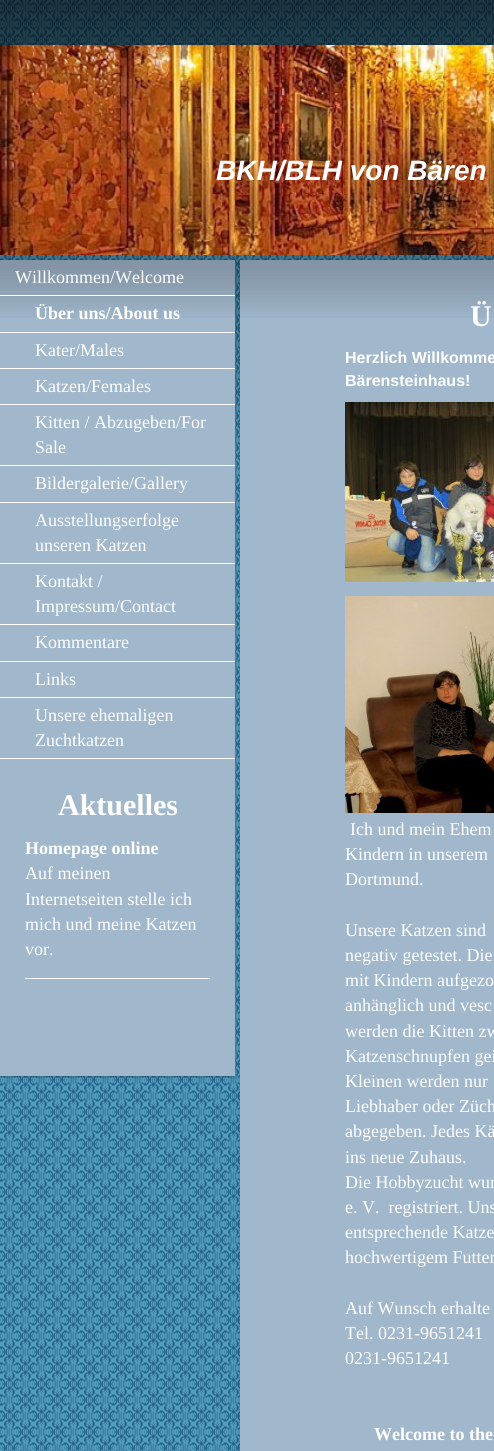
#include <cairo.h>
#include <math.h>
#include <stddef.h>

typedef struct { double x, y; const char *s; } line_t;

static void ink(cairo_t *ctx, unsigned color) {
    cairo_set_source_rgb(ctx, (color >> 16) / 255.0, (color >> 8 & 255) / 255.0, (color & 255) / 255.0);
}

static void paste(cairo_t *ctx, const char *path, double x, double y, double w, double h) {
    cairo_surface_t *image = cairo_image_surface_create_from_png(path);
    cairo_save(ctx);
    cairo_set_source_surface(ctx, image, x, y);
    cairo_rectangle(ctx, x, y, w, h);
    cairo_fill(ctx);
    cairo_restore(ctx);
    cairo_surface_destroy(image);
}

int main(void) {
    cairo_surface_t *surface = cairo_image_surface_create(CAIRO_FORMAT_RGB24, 494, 1451);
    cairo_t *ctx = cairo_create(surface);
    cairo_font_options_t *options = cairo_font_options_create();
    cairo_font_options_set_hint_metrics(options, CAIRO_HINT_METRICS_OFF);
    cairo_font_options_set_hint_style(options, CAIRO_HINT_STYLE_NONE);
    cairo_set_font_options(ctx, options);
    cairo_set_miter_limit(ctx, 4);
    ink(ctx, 0xFFFFFF);
    cairo_paint(ctx);
    paste(ctx, "media/1.png", 0, 0, 494, 1451);
    paste(ctx, "media/2.png", 0, 0, 494, 452);
    paste(ctx, "media/3.png", 0, 45, 494, 210);
    cairo_select_font_face(ctx, "Liberation Sans", CAIRO_FONT_SLANT_ITALIC, CAIRO_FONT_WEIGHT_BOLD);
    cairo_set_font_size(ctx, 28);
    ink(ctx, 0xFFFFFF);
    cairo_move_to(ctx, 216, 180);
    cairo_show_text(ctx, "BKH/BLH von Bären");
    cairo_set_source_rgba(ctx, 0, 0, 0, 0.03);
    cairo_rectangle(ctx, 4, 259, 226, 1);
    cairo_fill(ctx);
    paste(ctx, "media/4.png", 0, 1076, 236, 3);
    paste(ctx, "media/5.png", 235, 260, 2, 816);
    ink(ctx, 0xA1B7CC);
    cairo_rectangle(ctx, 0, 260, 235, 816);
    cairo_fill(ctx);
    paste(ctx, "media/6.png", 0, 260, 235, 58);
    ink(ctx, 0xFFFFFF);
    cairo_rectangle(ctx, 0, 295, 235, 1);
    cairo_fill(ctx);
    cairo_select_font_face(ctx, "Liberation Serif", CAIRO_FONT_SLANT_NORMAL, CAIRO_FONT_WEIGHT_NORMAL);
    cairo_set_font_size(ctx, 18);
    cairo_move_to(ctx, 15, 283);
    cairo_show_text(ctx, "Willkommen/Welcome");
    cairo_rectangle(ctx, 0, 332, 235, 1);
    cairo_fill(ctx);
    cairo_select_font_face(ctx, "Liberation Serif", CAIRO_FONT_SLANT_NORMAL, CAIRO_FONT_WEIGHT_BOLD);
    cairo_move_to(ctx, 35, 319);
    cairo_show_text(ctx, "Über uns/About us");
    cairo_rectangle(ctx, 0, 368, 235, 1);
    cairo_fill(ctx);
    cairo_select_font_face(ctx, "Liberation Serif", CAIRO_FONT_SLANT_NORMAL, CAIRO_FONT_WEIGHT_NORMAL);
    cairo_move_to(ctx, 35, 356);
    cairo_show_text(ctx, "Kater/Males");
    cairo_rectangle(ctx, 0, 404, 235, 1);
    cairo_fill(ctx);
    cairo_move_to(ctx, 35, 392);
    cairo_show_text(ctx, "Katzen/Females");
    cairo_rectangle(ctx, 0, 465, 235, 1);
    cairo_fill(ctx);
    cairo_move_to(ctx, 35, 428);
    cairo_show_text(ctx, "Kitten / Abzugeben/For");
    cairo_move_to(ctx, 35, 453);
    cairo_show_text(ctx, "Sale");
    cairo_rectangle(ctx, 0, 502, 235, 1);
    cairo_fill(ctx);
    cairo_move_to(ctx, 35, 489);
    cairo_show_text(ctx, "Bildergalerie/Gallery");
    cairo_rectangle(ctx, 0, 563, 235, 1);
    cairo_fill(ctx);
    cairo_move_to(ctx, 35, 526);
    cairo_show_text(ctx, "Ausstellungserfolge");
    cairo_move_to(ctx, 35, 551);
    cairo_show_text(ctx, "unseren Katzen");
    cairo_rectangle(ctx, 0, 624, 235, 1);
    cairo_fill(ctx);
    cairo_move_to(ctx, 35, 587);
    cairo_show_text(ctx, "Kontakt /");
    cairo_move_to(ctx, 35, 612);
    cairo_show_text(ctx, "Impressum/Contact");
    cairo_rectangle(ctx, 0, 661, 235, 1);
    cairo_fill(ctx);
    cairo_move_to(ctx, 35, 648);
    cairo_show_text(ctx, "Kommentare");
    cairo_rectangle(ctx, 0, 697, 235, 1);
    cairo_fill(ctx);
    cairo_move_to(ctx, 35, 685);
    cairo_show_text(ctx, "Links");
    cairo_rectangle(ctx, 0, 758, 235, 1);
    cairo_fill(ctx);
    cairo_move_to(ctx, 35, 721);
    cairo_show_text(ctx, "Unsere ehemaligen");
    cairo_move_to(ctx, 35, 746);
    cairo_show_text(ctx, "Zuchtkatzen");
    cairo_select_font_face(ctx, "Liberation Serif", CAIRO_FONT_SLANT_NORMAL, CAIRO_FONT_WEIGHT_BOLD);
    cairo_set_font_size(ctx, 30);
    cairo_move_to(ctx, 58, 815);
    cairo_show_text(ctx, "Aktuelles");
    cairo_set_font_size(ctx, 18);
    cairo_move_to(ctx, 25, 854);
    cairo_show_text(ctx, "Homepage online");
    cairo_select_font_face(ctx, "Liberation Serif", CAIRO_FONT_SLANT_NORMAL, CAIRO_FONT_WEIGHT_NORMAL);
    {
        static const line_t items[] = {
            {25, 879, "Auf meinen"},
            {25, 905, "Internetseiten stelle ich"},
            {25, 930, "mich und meine Katzen"},
            {25, 955, "vor."},
        };
        for (size_t i = 0; i < sizeof items / sizeof *items; i++) {
            cairo_move_to(ctx, items[i].x, items[i].y);
            cairo_show_text(ctx, items[i].s);
        }
    }
    cairo_rectangle(ctx, 25, 978, 185, 1);
    cairo_fill(ctx);
    cairo_set_source_rgba(ctx, 0, 0, 0, 0.03);
    cairo_rectangle(ctx, 244, 259, 250, 1);
    cairo_fill(ctx);
    paste(ctx, "media/7.png", 238, 260, 2, 1191);
    ink(ctx, 0xA1B7CC);
    cairo_rectangle(ctx, 240, 260, 254, 1191);
    cairo_fill(ctx);
    paste(ctx, "media/8.png", 240, 260, 254, 58);
    cairo_select_font_face(ctx, "Liberation Serif", CAIRO_FONT_SLANT_NORMAL, CAIRO_FONT_WEIGHT_BOLD);
    cairo_set_font_size(ctx, 30);
    ink(ctx, 0xFFFFFF);
    cairo_move_to(ctx, 470, 326);
    cairo_show_text(ctx, "Ü");
    cairo_select_font_face(ctx, "Liberation Sans", CAIRO_FONT_SLANT_NORMAL, CAIRO_FONT_WEIGHT_BOLD);
    cairo_set_font_size(ctx, 16);
    cairo_move_to(ctx, 345, 363);
    cairo_show_text(ctx, "Herzlich Willkomme");
    cairo_move_to(ctx, 345, 386);
    cairo_show_text(ctx, "Bärensteinhaus!");
    paste(ctx, "media/9.png", 345, 402, 149, 180);
    paste(ctx, "media/10.png", 345, 596, 149, 217);
    cairo_select_font_face(ctx, "Liberation Serif", CAIRO_FONT_SLANT_NORMAL, CAIRO_FONT_WEIGHT_NORMAL);
    cairo_set_font_size(ctx, 18);
    {
        static const line_t items[] = {
            {350, 835, "Ich und mein Ehem"},
            {345, 860, "Kindern in unserem"},
            {345, 885, "Dortmund."},
            {345, 936, "Unsere Katzen sind"},
            {345, 961, "negativ getestet. Die"},
            {345, 986, "mit Kindern aufgezo"},
            {345, 1011, "anhänglich und vesc"},
            {345, 1037, "werden die Kitten zw"},
            {345, 1062, "Katzenschnupfen gei"},
            {345, 1087, "Kleinen werden nur"},
            {345, 1112, "Liebhaber oder Züch"},
            {345, 1137, "abgegeben. Jedes Kä"},
            {345, 1163, "ins neue Zuhaus."},
            {345, 1188, "Die Hobbyzucht wur"},
            {345, 1213, "e. V.  registriert. Uns"},
            {345, 1238, "entsprechende Katze"},
            {345, 1263, "hochwertigem Futter"},
            {345, 1314, "Auf Wunsch erhalte"},
            {345, 1339, "Tel. 0231-9651241"},
            {345, 1364, "0231-9651241"},
        };
        for (size_t i = 0; i < sizeof items / sizeof *items; i++) {
            cairo_move_to(ctx, items[i].x, items[i].y);
            cairo_show_text(ctx, items[i].s);
        }
    }
    cairo_select_font_face(ctx, "Liberation Serif", CAIRO_FONT_SLANT_NORMAL, CAIRO_FONT_WEIGHT_BOLD);
    cairo_move_to(ctx, 374, 1440);
    cairo_show_text(ctx, "Welcome to the");
    cairo_surface_write_to_png(surface, "image.png");
    cairo_font_options_destroy(options);
    cairo_destroy(ctx);
    cairo_surface_destroy(surface);
    return 0;
}
